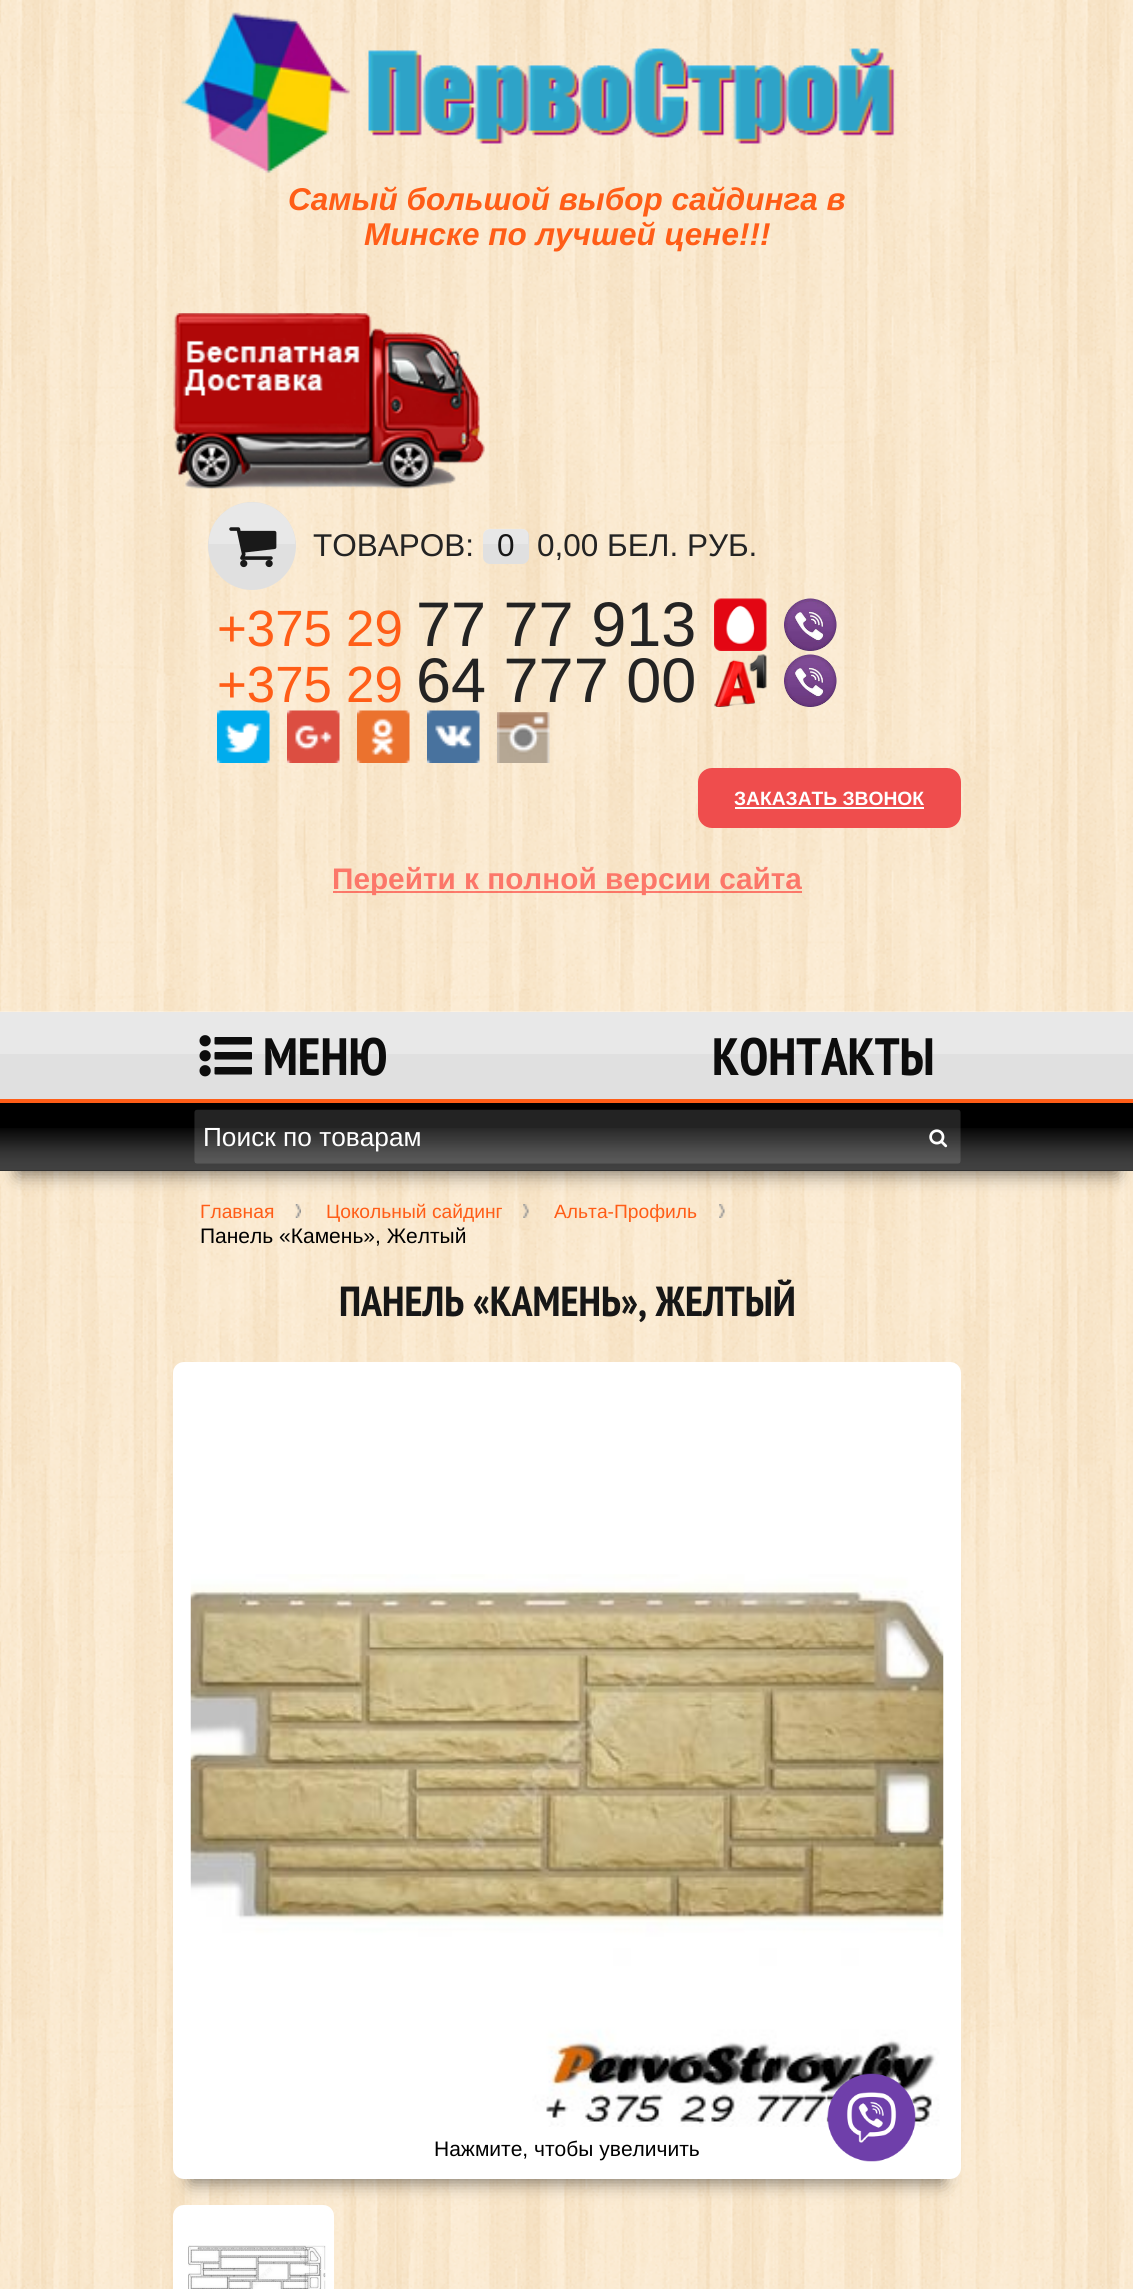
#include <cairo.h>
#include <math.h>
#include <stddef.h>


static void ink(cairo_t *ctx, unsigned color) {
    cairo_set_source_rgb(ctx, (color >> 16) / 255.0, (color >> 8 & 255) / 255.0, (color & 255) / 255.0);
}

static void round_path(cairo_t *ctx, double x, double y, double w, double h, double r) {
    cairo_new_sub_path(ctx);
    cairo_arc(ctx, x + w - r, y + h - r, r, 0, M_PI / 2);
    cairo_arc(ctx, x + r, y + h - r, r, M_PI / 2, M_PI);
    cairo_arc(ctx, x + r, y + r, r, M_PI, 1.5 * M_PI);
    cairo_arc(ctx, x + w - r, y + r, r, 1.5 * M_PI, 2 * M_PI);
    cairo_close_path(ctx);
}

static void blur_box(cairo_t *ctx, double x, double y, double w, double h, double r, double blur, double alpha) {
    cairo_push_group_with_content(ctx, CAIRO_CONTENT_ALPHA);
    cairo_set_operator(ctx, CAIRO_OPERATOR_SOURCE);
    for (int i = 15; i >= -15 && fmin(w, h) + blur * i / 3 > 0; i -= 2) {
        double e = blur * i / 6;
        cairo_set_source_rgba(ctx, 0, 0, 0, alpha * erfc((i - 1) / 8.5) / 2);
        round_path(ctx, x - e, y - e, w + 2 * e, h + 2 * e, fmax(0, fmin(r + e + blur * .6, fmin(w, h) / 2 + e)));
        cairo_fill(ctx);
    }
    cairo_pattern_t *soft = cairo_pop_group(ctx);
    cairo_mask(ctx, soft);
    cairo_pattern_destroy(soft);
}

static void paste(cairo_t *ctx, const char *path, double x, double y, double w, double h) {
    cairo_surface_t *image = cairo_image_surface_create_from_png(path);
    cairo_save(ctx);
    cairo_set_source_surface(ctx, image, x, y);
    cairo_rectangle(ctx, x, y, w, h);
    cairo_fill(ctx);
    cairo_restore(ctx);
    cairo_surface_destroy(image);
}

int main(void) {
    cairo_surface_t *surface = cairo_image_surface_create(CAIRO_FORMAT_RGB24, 1133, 2289);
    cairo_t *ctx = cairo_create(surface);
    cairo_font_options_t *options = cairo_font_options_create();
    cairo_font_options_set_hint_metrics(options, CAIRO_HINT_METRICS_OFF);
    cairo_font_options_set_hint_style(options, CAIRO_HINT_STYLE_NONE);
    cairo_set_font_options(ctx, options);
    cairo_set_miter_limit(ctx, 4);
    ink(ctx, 0xFFFFFF);
    cairo_paint(ctx);
    paste(ctx, "media/1.png", 0, 0, 1133, 2289);
    paste(ctx, "media/2.png", 181, 12, 714, 162);
    cairo_select_font_face(ctx, "Liberation Sans", CAIRO_FONT_SLANT_ITALIC, CAIRO_FONT_WEIGHT_BOLD);
    cairo_set_font_size(ctx, 31.5);
    ink(ctx, 0xFF5D17);
    cairo_move_to(ctx, 288, 210);
    cairo_show_text(ctx, "Самый большой выбор сайдинга в");
    cairo_move_to(ctx, 364, 245);
    cairo_show_text(ctx, "Минске по лучшей цене!!!");
    paste(ctx, "media/3.png", 173, 313, 312, 176);
    ink(ctx, 0xE0E0E0);
    cairo_arc(ctx, 252, 546, 44, 0, 2 * M_PI);
    cairo_fill(ctx);
    paste(ctx, "media/4.png", 209, 502, 86, 42);
    paste(ctx, "media/5.png", 229, 527, 48, 41);
    cairo_select_font_face(ctx, "Liberation Sans", CAIRO_FONT_SLANT_NORMAL, CAIRO_FONT_WEIGHT_NORMAL);
    ink(ctx, 0x232323);
    cairo_move_to(ctx, 313, 556);
    cairo_show_text(ctx, "ТОВАРОВ:");
    ink(ctx, 0xE0E0E0);
    round_path(ctx, 483, 529, 46, 35, 7);
    cairo_fill(ctx);
    paste(ctx, "media/6.png", 483, 528, 45, 16);
    ink(ctx, 0x171717);
    cairo_move_to(ctx, 497, 556);
    cairo_show_text(ctx, "0");
    ink(ctx, 0x232323);
    cairo_move_to(ctx, 537, 556);
    cairo_show_text(ctx, "0,00 БЕЛ. РУБ.");
    cairo_set_font_size(ctx, 51);
    ink(ctx, 0xFF5D17);
    cairo_move_to(ctx, 217, 646);
    cairo_show_text(ctx, "+375 29");
    cairo_set_font_size(ctx, 63);
    ink(ctx, 0x232323);
    cairo_move_to(ctx, 416, 646);
    cairo_show_text(ctx, "77 77 913");
    paste(ctx, "media/7.png", 714, 598, 53, 53);
    paste(ctx, "media/8.png", 784, 598, 53, 53);
    cairo_set_font_size(ctx, 51);
    ink(ctx, 0xFF5D17);
    cairo_move_to(ctx, 217, 702);
    cairo_show_text(ctx, "+375 29");
    cairo_set_font_size(ctx, 63);
    ink(ctx, 0x232323);
    cairo_move_to(ctx, 416, 702);
    cairo_show_text(ctx, "64 777 00");
    paste(ctx, "media/9.png", 714, 654, 53, 53);
    paste(ctx, "media/10.png", 784, 654, 53, 53);
    paste(ctx, "media/11.png", 217, 710, 53, 53);
    paste(ctx, "media/12.png", 287, 710, 53, 53);
    paste(ctx, "media/13.png", 357, 710, 53, 53);
    paste(ctx, "media/14.png", 427, 710, 53, 53);
    paste(ctx, "media/15.png", 497, 712, 53, 51);
    ink(ctx, 0xEF4D4D);
    round_path(ctx, 698, 768, 263, 60, 14);
    cairo_fill(ctx);
    cairo_select_font_face(ctx, "Liberation Sans", CAIRO_FONT_SLANT_NORMAL, CAIRO_FONT_WEIGHT_BOLD);
    cairo_set_font_size(ctx, 19.25);
    ink(ctx, 0xFFFFFF);
    cairo_move_to(ctx, 734, 805);
    cairo_show_text(ctx, "ЗАКАЗАТЬ ЗВОНОК");
    cairo_rectangle(ctx, 735, 807, 189, 2);
    cairo_fill(ctx);
    round_path(ctx, 173, 2205, 161, 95, 11);
    cairo_fill(ctx);
    ink(ctx, 0x000000);
    blur_box(ctx, 191, 1400, 752, 782, 0, 9, 0.5);
    ink(ctx, 0xFFFFFF);
    round_path(ctx, 173, 1362, 788, 817, 11);
    cairo_fill(ctx);
    paste(ctx, "media/24.png", 190, 1574, 754, 553);
    paste(ctx, "media/16.png", 827, 2073, 89, 89);
    cairo_set_source_rgba(ctx, 1, 0, 0, 0.48);
    cairo_rectangle(ctx, 333, 891, 469, 2);
    cairo_fill(ctx);
    cairo_set_font_size(ctx, 29.75);
    ink(ctx, 0xFC7769);
    cairo_move_to(ctx, 332, 889);
    cairo_show_text(ctx, "Перейти к полной версии сайта");
    ink(ctx, 0xE0E0E0);
    cairo_rectangle(ctx, 0, 1012, 1133, 87);
    cairo_fill(ctx);
    cairo_set_source_rgba(ctx, 1, 1, 1, 0.27);
    cairo_rectangle(ctx, 0, 1011, 1133, 43);
    cairo_fill(ctx);
    ink(ctx, 0xFF5D17);
    cairo_rectangle(ctx, 0, 1099, 1133, 4);
    cairo_fill(ctx);
    paste(ctx, "media/17.png", 199, 1035, 53, 42);
    cairo_select_font_face(ctx, "PT Sans Narrow", CAIRO_FONT_SLANT_NORMAL, CAIRO_FONT_WEIGHT_BOLD);
    cairo_set_font_size(ctx, 52.5);
    ink(ctx, 0x0D0D0D);
    cairo_move_to(ctx, 263, 1075);
    cairo_show_text(ctx, "МЕНЮ");
    cairo_move_to(ctx, 712, 1075);
    cairo_show_text(ctx, "КОНТАКТЫ");
    ink(ctx, 0x000000);
    blur_box(ctx, 18, 1141, 1099, 33, 0, 9, 0.5);
    ink(ctx, 0x000000);
    cairo_rectangle(ctx, 0, 1103, 1133, 68);
    cairo_fill(ctx);
    paste(ctx, "media/18.png", 0, 1128, 1133, 43);
    paste(ctx, "media/19.png", 194, 1109, 767, 55);
    cairo_select_font_face(ctx, "Liberation Sans", CAIRO_FONT_SLANT_NORMAL, CAIRO_FONT_WEIGHT_NORMAL);
    cairo_set_font_size(ctx, 26.25);
    ink(ctx, 0xFFFFFF);
    cairo_move_to(ctx, 203, 1146);
    cairo_show_text(ctx, "Поиск по товарам");
    paste(ctx, "media/20.png", 929, 1129, 19, 19);
    cairo_set_font_size(ctx, 19.25);
    ink(ctx, 0xFF5D17);
    cairo_move_to(ctx, 200, 1218);
    cairo_show_text(ctx, "Главная");
    paste(ctx, "media/21.png", 295, 1204, 6, 14);
    cairo_move_to(ctx, 326, 1218);
    cairo_show_text(ctx, "Цокольный сайдинг");
    paste(ctx, "media/22.png", 523, 1204, 6, 14);
    cairo_move_to(ctx, 554, 1218);
    cairo_show_text(ctx, "Альта-Профиль");
    paste(ctx, "media/23.png", 719, 1204, 6, 14);
    cairo_set_font_size(ctx, 21);
    ink(ctx, 0x000000);
    cairo_move_to(ctx, 200, 1243);
    cairo_show_text(ctx, "Панель «Камень», Желтый");
    cairo_select_font_face(ctx, "PT Sans Narrow", CAIRO_FONT_SLANT_NORMAL, CAIRO_FONT_WEIGHT_BOLD);
    cairo_set_font_size(ctx, 42);
    ink(ctx, 0x171717);
    cairo_move_to(ctx, 339, 1316);
    cairo_show_text(ctx, "ПАНЕЛЬ «КАМЕНЬ», ЖЕЛТЫЙ");
    cairo_select_font_face(ctx, "Liberation Sans", CAIRO_FONT_SLANT_NORMAL, CAIRO_FONT_WEIGHT_NORMAL);
    cairo_set_font_size(ctx, 21);
    ink(ctx, 0x000000);
    cairo_move_to(ctx, 434, 2156);
    cairo_show_text(ctx, "Нажмите, чтобы увеличить");
    paste(ctx, "media/25.png", 188, 2245, 138, 44);
    cairo_surface_write_to_png(surface, "image.png");
    cairo_font_options_destroy(options);
    cairo_destroy(ctx);
    cairo_surface_destroy(surface);
    return 0;
}
